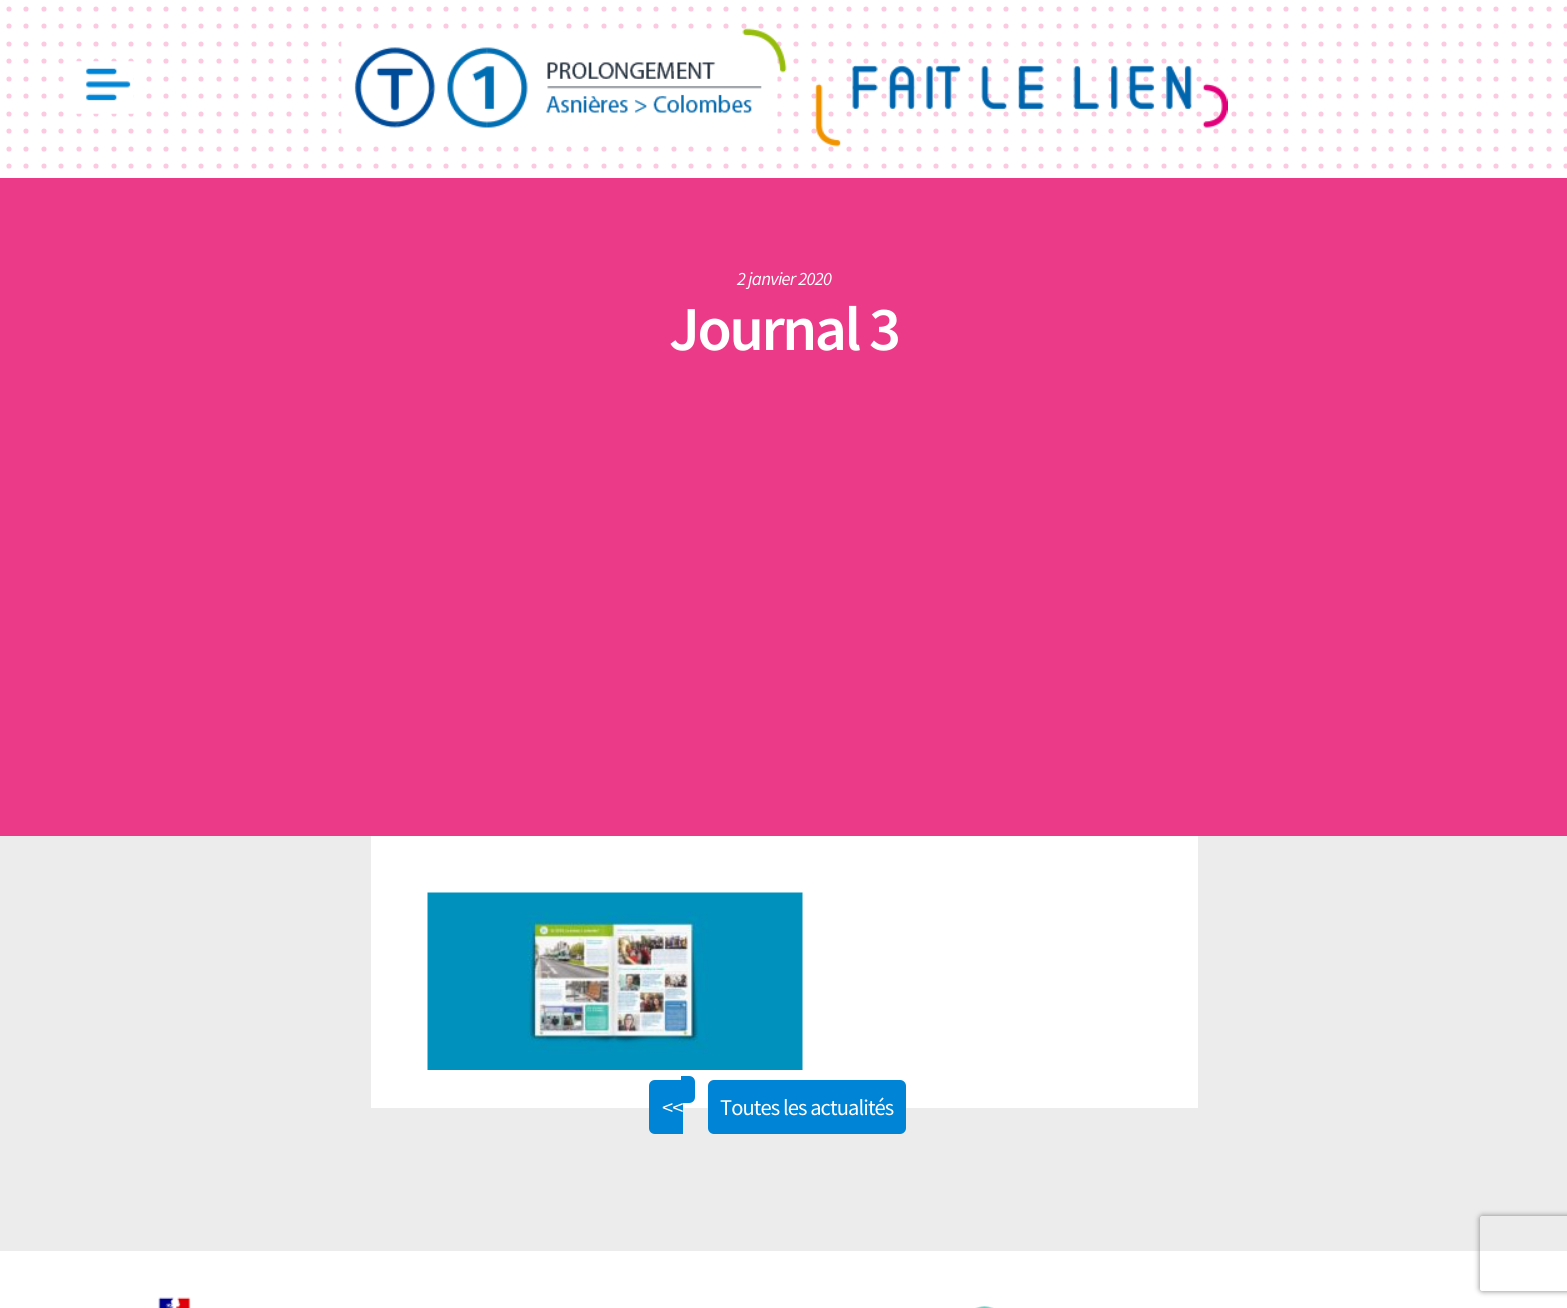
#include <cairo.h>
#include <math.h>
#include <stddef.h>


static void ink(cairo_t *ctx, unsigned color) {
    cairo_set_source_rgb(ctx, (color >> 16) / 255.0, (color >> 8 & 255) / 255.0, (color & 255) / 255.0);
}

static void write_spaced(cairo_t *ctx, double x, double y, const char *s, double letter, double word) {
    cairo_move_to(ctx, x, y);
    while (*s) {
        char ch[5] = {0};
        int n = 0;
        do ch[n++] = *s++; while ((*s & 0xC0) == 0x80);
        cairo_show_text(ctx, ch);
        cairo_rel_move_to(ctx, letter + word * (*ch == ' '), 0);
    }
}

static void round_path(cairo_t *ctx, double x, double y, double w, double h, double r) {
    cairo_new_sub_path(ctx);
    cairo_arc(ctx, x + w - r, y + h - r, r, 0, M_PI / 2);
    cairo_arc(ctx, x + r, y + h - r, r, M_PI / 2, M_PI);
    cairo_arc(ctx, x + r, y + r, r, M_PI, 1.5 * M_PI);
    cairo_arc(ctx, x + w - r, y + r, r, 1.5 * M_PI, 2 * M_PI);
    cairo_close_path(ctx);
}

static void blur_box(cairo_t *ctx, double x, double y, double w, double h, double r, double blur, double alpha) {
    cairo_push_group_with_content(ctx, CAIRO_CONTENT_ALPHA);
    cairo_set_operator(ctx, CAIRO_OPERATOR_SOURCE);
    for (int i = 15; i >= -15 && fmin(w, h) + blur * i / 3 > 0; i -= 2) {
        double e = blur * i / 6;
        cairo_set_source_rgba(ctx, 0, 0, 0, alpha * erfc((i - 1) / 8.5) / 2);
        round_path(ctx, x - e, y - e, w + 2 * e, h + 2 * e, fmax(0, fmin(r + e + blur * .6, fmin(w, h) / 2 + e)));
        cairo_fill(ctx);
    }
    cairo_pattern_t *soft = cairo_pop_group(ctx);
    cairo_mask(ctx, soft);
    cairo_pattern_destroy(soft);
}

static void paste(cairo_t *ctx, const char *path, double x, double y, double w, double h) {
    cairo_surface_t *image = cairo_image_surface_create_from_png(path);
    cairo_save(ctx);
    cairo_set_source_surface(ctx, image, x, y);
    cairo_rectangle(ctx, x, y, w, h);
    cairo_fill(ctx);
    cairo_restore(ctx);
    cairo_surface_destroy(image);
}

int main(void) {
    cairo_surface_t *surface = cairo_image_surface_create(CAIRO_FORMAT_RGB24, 1567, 1308);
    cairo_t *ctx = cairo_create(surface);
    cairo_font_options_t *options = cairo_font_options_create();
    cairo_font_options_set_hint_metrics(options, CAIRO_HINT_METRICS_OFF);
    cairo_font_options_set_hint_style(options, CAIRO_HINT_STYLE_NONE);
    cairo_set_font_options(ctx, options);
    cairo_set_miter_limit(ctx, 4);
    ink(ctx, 0xFFFFFF);
    cairo_paint(ctx);
    paste(ctx, "media/1.png", 6, 6, 1561, 163);
    paste(ctx, "media/2.png", 76, 61, 58, 53);
    paste(ctx, "media/3.png", 341, 28, 887, 119);
    ink(ctx, 0xECECEC);
    cairo_rectangle(ctx, 0, 836, 1567, 415);
    cairo_fill(ctx);
    ink(ctx, 0xEB3A87);
    cairo_rectangle(ctx, 0, 178, 1567, 658);
    cairo_fill(ctx);
    cairo_select_font_face(ctx, "Source Sans Pro", CAIRO_FONT_SLANT_ITALIC, CAIRO_FONT_WEIGHT_NORMAL);
    cairo_set_font_size(ctx, 18.75);
    ink(ctx, 0xFFFFFF);
    write_spaced(ctx, 737, 285, "2 janvier 2020", -0.75, 0);
    cairo_select_font_face(ctx, "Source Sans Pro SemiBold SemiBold", CAIRO_FONT_SLANT_NORMAL, CAIRO_FONT_WEIGHT_NORMAL);
    cairo_set_font_size(ctx, 62.5);
    write_spaced(ctx, 669, 350, "Journal 3", -2.5, 0);
    cairo_rectangle(ctx, 371, 836, 827, 272);
    cairo_fill(ctx);
    paste(ctx, "media/4.png", 427, 892, 376, 178);
    ink(ctx, 0x0084D5);
    cairo_new_path(ctx);
    cairo_move_to(ctx, 655, 1080);
    cairo_line_to(ctx, 683, 1080);
    cairo_line_to(ctx, 683, 1134);
    cairo_line_to(ctx, 655, 1134);
    cairo_curve_to(ctx, 651.5, 1134, 649, 1131.5, 649, 1128);
    cairo_line_to(ctx, 649, 1086);
    cairo_curve_to(ctx, 649, 1082.5, 651.5, 1080, 655, 1080);
    cairo_close_path(ctx);
    cairo_fill(ctx);
    cairo_select_font_face(ctx, "Source Sans Pro", CAIRO_FONT_SLANT_NORMAL, CAIRO_FONT_WEIGHT_NORMAL);
    cairo_set_font_size(ctx, 22.5);
    ink(ctx, 0xFFFFFF);
    write_spaced(ctx, 662, 1115, "<<", -0.9, 0);
    ink(ctx, 0x0084D5);
    cairo_new_path(ctx);
    cairo_move_to(ctx, 681, 1076);
    cairo_line_to(ctx, 689, 1076);
    cairo_curve_to(ctx, 692.5, 1076, 695, 1078.5, 695, 1082);
    cairo_line_to(ctx, 695, 1097);
    cairo_curve_to(ctx, 695, 1100.5, 692.5, 1103, 689, 1103);
    cairo_line_to(ctx, 681, 1103);
    cairo_close_path(ctx);
    cairo_fill(ctx);
    round_path(ctx, 708, 1080, 198, 54, 6);
    cairo_fill(ctx);
    ink(ctx, 0xFFFFFF);
    write_spaced(ctx, 720, 1115, "Toutes les actualités", -0.9, 0);
    cairo_save(ctx);
    cairo_set_fill_rule(ctx, CAIRO_FILL_RULE_EVEN_ODD);
    cairo_new_path(ctx);
    cairo_move_to(ctx, 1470, 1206);
    cairo_line_to(ctx, 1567, 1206);
    cairo_line_to(ctx, 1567, 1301);
    cairo_line_to(ctx, 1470, 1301);
    cairo_close_path(ctx);
    cairo_move_to(ctx, 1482.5, 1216);
    cairo_line_to(ctx, 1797.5, 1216);
    cairo_curve_to(ctx, 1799, 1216, 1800, 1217, 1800, 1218.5);
    cairo_line_to(ctx, 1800, 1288.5);
    cairo_curve_to(ctx, 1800, 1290, 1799, 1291, 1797.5, 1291);
    cairo_line_to(ctx, 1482.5, 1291);
    cairo_curve_to(ctx, 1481, 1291, 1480, 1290, 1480, 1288.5);
    cairo_line_to(ctx, 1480, 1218.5);
    cairo_curve_to(ctx, 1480, 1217, 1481, 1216, 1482.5, 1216);
    cairo_close_path(ctx);
    cairo_clip(ctx);
    ink(ctx, 0x808080);
    blur_box(ctx, 1480, 1216, 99, 75, 2.5, 3, 1);
    cairo_restore(ctx);
    paste(ctx, "media/5.png", 158, 1297, 33, 11);
    paste(ctx, "media/6.png", 975, 1306, 19, 2);
    cairo_surface_write_to_png(surface, "image.png");
    cairo_font_options_destroy(options);
    cairo_destroy(ctx);
    cairo_surface_destroy(surface);
    return 0;
}
